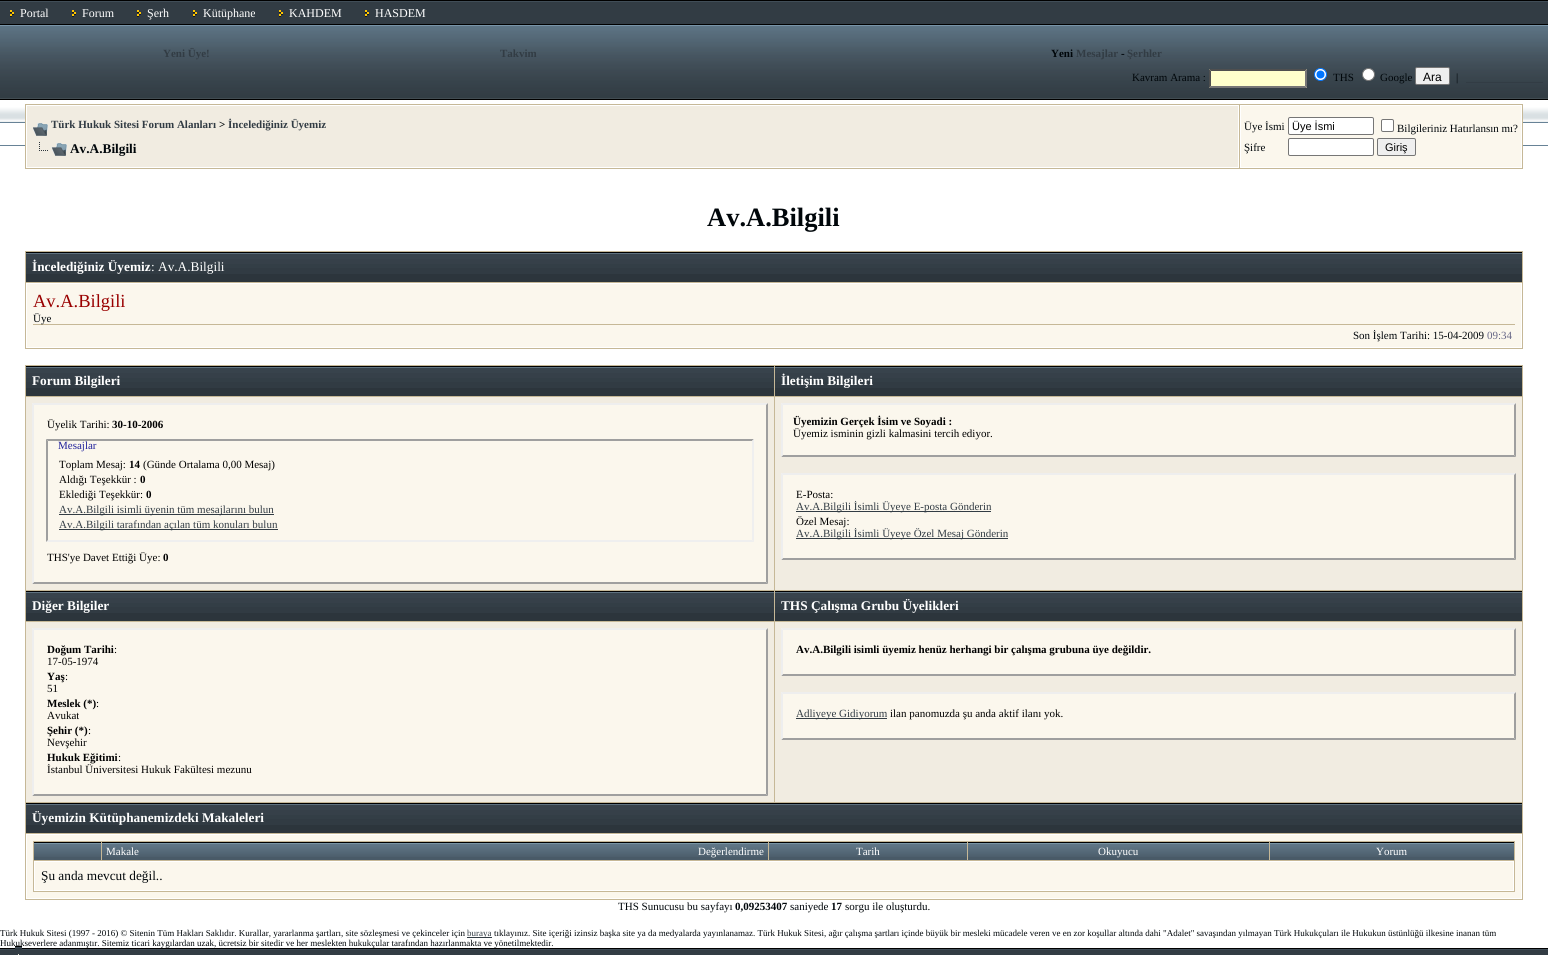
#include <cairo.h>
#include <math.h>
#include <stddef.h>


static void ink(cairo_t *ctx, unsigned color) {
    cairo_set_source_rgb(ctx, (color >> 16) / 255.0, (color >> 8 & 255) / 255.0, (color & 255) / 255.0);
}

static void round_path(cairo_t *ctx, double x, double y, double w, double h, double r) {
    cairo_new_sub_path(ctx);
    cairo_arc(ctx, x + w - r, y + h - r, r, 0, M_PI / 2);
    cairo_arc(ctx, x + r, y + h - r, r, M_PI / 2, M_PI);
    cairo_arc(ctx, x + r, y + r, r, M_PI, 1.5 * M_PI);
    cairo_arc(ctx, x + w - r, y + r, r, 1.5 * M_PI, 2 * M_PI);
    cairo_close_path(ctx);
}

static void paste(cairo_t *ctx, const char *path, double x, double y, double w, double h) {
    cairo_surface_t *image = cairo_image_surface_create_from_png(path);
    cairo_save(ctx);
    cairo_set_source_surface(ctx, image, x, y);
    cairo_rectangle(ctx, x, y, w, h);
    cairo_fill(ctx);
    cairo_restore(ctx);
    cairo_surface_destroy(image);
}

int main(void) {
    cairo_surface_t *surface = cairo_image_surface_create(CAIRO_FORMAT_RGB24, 1548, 955);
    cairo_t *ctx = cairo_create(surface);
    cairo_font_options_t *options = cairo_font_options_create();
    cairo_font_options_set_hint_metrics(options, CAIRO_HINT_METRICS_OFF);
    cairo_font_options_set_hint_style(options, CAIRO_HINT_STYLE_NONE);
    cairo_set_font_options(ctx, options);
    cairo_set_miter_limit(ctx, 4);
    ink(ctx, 0xFFFFFF);
    cairo_paint(ctx);
    paste(ctx, "media/1.png", 0, 0, 1548, 146);
    paste(ctx, "media/2.png", 10, 10, 4, 7);
    cairo_select_font_face(ctx, "Liberation Serif", CAIRO_FONT_SLANT_NORMAL, CAIRO_FONT_WEIGHT_NORMAL);
    cairo_set_font_size(ctx, 12);
    ink(ctx, 0xFFFFFF);
    cairo_move_to(ctx, 20, 17);
    cairo_show_text(ctx, "Portal");
    paste(ctx, "media/2.png", 72, 10, 4, 7);
    cairo_move_to(ctx, 82, 17);
    cairo_show_text(ctx, "Forum");
    paste(ctx, "media/2.png", 137, 10, 4, 7);
    cairo_move_to(ctx, 147, 17);
    cairo_show_text(ctx, "Şerh");
    paste(ctx, "media/2.png", 193, 10, 4, 7);
    cairo_move_to(ctx, 203, 17);
    cairo_show_text(ctx, "Kütüphane");
    paste(ctx, "media/2.png", 279, 10, 4, 7);
    cairo_move_to(ctx, 289, 17);
    cairo_show_text(ctx, "KAHDEM");
    paste(ctx, "media/2.png", 365, 10, 4, 7);
    cairo_move_to(ctx, 375, 17);
    cairo_show_text(ctx, "HASDEM");
    cairo_select_font_face(ctx, "Liberation Serif", CAIRO_FONT_SLANT_NORMAL, CAIRO_FONT_WEIGHT_BOLD);
    cairo_set_font_size(ctx, 11);
    ink(ctx, 0x323C44);
    cairo_move_to(ctx, 163, 57);
    cairo_show_text(ctx, "Yeni Üye!");
    cairo_move_to(ctx, 500, 57);
    cairo_show_text(ctx, "Takvim");
    ink(ctx, 0x00060A);
    cairo_move_to(ctx, 1051, 57);
    cairo_show_text(ctx, "Yeni");
    ink(ctx, 0x323C44);
    cairo_move_to(ctx, 1076, 57);
    cairo_show_text(ctx, "Mesajlar");
    ink(ctx, 0x00060A);
    cairo_move_to(ctx, 1121, 57);
    cairo_show_text(ctx, "-");
    ink(ctx, 0x323C44);
    cairo_move_to(ctx, 1127, 57);
    cairo_show_text(ctx, "Şerhler");
    cairo_select_font_face(ctx, "Liberation Serif", CAIRO_FONT_SLANT_NORMAL, CAIRO_FONT_WEIGHT_NORMAL);
    ink(ctx, 0x00060A);
    cairo_move_to(ctx, 1132, 81);
    cairo_show_text(ctx, "Kavram Arama :");
    ink(ctx, 0xFFFFCC);
    cairo_rectangle(ctx, 1209, 69, 98, 19);
    cairo_fill(ctx);
    ink(ctx, 0x4F4F4F);
    cairo_new_path(ctx);
    cairo_move_to(ctx, 1209, 69);
    cairo_line_to(ctx, 1307, 69);
    cairo_line_to(ctx, 1305, 71);
    cairo_line_to(ctx, 1211, 71);
    cairo_close_path(ctx);
    cairo_fill(ctx);
    ink(ctx, 0x767676);
    cairo_new_path(ctx);
    cairo_move_to(ctx, 1307, 69);
    cairo_line_to(ctx, 1307, 88);
    cairo_line_to(ctx, 1305, 86);
    cairo_line_to(ctx, 1305, 71);
    cairo_close_path(ctx);
    cairo_fill(ctx);
    cairo_new_path(ctx);
    cairo_move_to(ctx, 1307, 88);
    cairo_line_to(ctx, 1209, 88);
    cairo_line_to(ctx, 1211, 86);
    cairo_line_to(ctx, 1305, 86);
    cairo_close_path(ctx);
    cairo_fill(ctx);
    ink(ctx, 0x4F4F4F);
    cairo_new_path(ctx);
    cairo_move_to(ctx, 1209, 88);
    cairo_line_to(ctx, 1209, 69);
    cairo_line_to(ctx, 1211, 71);
    cairo_line_to(ctx, 1211, 86);
    cairo_close_path(ctx);
    cairo_fill(ctx);
    ink(ctx, 0xFFFFFF);
    cairo_arc(ctx, 1320.5, 74.5, 6, 0, 2 * M_PI);
    cairo_fill_preserve(ctx);
    ink(ctx, 0x0075FF);
    cairo_set_line_width(ctx, 1);
    cairo_stroke(ctx);
    cairo_arc(ctx, 1320.5, 74.5, 4, 0, 2 * M_PI);
    cairo_fill(ctx);
    ink(ctx, 0x00060A);
    cairo_move_to(ctx, 1333, 81);
    cairo_show_text(ctx, "THS");
    ink(ctx, 0xFFFFFF);
    cairo_new_path(ctx);
    cairo_arc(ctx, 1368.5, 74.5, 6, 0, 2 * M_PI);
    cairo_fill_preserve(ctx);
    ink(ctx, 0x767676);
    cairo_stroke(ctx);
    ink(ctx, 0x00060A);
    cairo_move_to(ctx, 1380, 81);
    cairo_show_text(ctx, "Google");
    ink(ctx, 0xEFEFEF);
    round_path(ctx, 1415.5, 67.5, 34, 17, 1.5);
    cairo_fill_preserve(ctx);
    ink(ctx, 0x767676);
    cairo_stroke(ctx);
    cairo_select_font_face(ctx, "Liberation Sans", CAIRO_FONT_SLANT_NORMAL, CAIRO_FONT_WEIGHT_NORMAL);
    cairo_set_font_size(ctx, 12);
    ink(ctx, 0x000000);
    cairo_move_to(ctx, 1423, 81);
    cairo_show_text(ctx, "Ara");
    cairo_select_font_face(ctx, "Liberation Serif", CAIRO_FONT_SLANT_NORMAL, CAIRO_FONT_WEIGHT_NORMAL);
    cairo_set_font_size(ctx, 11);
    ink(ctx, 0x00060A);
    cairo_move_to(ctx, 1456, 81);
    cairo_show_text(ctx, "|");
    ink(ctx, 0x323C44);
    cairo_rectangle(ctx, 1466, 82, 77, 1);
    cairo_fill(ctx);
    ink(ctx, 0xC6B897);
    cairo_rectangle(ctx, 25, 104, 1498, 65);
    cairo_fill(ctx);
    ink(ctx, 0xF1ECE1);
    cairo_rectangle(ctx, 26.5, 105.5, 1212, 62);
    cairo_fill_preserve(ctx);
    ink(ctx, 0xFFFFFF);
    cairo_stroke(ctx);
    paste(ctx, "media/3.png", 33, 123, 15, 13);
    cairo_select_font_face(ctx, "Liberation Serif", CAIRO_FONT_SLANT_NORMAL, CAIRO_FONT_WEIGHT_BOLD);
    ink(ctx, 0x323C44);
    cairo_move_to(ctx, 51, 128);
    cairo_show_text(ctx, "Türk Hukuk Sitesi Forum Alanları");
    ink(ctx, 0x00060A);
    cairo_move_to(ctx, 219, 128);
    cairo_show_text(ctx, ">");
    ink(ctx, 0x323C44);
    cairo_move_to(ctx, 228, 128);
    cairo_show_text(ctx, "İncelediğiniz Üyemiz");
    paste(ctx, "media/4.png", 39, 142, 28, 14);
    cairo_set_font_size(ctx, 13.3);
    ink(ctx, 0x00060A);
    cairo_move_to(ctx, 70, 153);
    cairo_show_text(ctx, "Av.A.Bilgili");
    ink(ctx, 0xFBF7ED);
    cairo_rectangle(ctx, 1240.5, 105.5, 281, 62);
    cairo_fill_preserve(ctx);
    ink(ctx, 0xFFFFFF);
    cairo_stroke(ctx);
    cairo_select_font_face(ctx, "Liberation Serif", CAIRO_FONT_SLANT_NORMAL, CAIRO_FONT_WEIGHT_NORMAL);
    cairo_set_font_size(ctx, 11);
    ink(ctx, 0x00060A);
    cairo_move_to(ctx, 1244, 130);
    cairo_show_text(ctx, "Üye İsmi");
    ink(ctx, 0xFFFFFF);
    round_path(ctx, 1288.5, 117.5, 85, 17, 1.5);
    cairo_fill_preserve(ctx);
    ink(ctx, 0x767676);
    cairo_stroke(ctx);
    cairo_select_font_face(ctx, "Liberation Sans", CAIRO_FONT_SLANT_NORMAL, CAIRO_FONT_WEIGHT_NORMAL);
    ink(ctx, 0x000000);
    cairo_move_to(ctx, 1292, 130);
    cairo_show_text(ctx, "Üye İsmi");
    ink(ctx, 0xFFFFFF);
    round_path(ctx, 1381.5, 119.5, 12, 12, 1.5);
    cairo_fill_preserve(ctx);
    ink(ctx, 0x767676);
    cairo_stroke(ctx);
    cairo_select_font_face(ctx, "Liberation Serif", CAIRO_FONT_SLANT_NORMAL, CAIRO_FONT_WEIGHT_NORMAL);
    ink(ctx, 0x00060A);
    cairo_move_to(ctx, 1397, 132);
    cairo_show_text(ctx, "Bilgileriniz Hatırlansın mı?");
    cairo_move_to(ctx, 1244, 151);
    cairo_show_text(ctx, "Şifre");
    ink(ctx, 0xFFFFFF);
    round_path(ctx, 1288.5, 138.5, 85, 17, 1.5);
    cairo_fill_preserve(ctx);
    ink(ctx, 0x767676);
    cairo_stroke(ctx);
    ink(ctx, 0xEFEFEF);
    round_path(ctx, 1377.5, 138.5, 38, 17, 1.5);
    cairo_fill_preserve(ctx);
    ink(ctx, 0x767676);
    cairo_stroke(ctx);
    cairo_select_font_face(ctx, "Liberation Sans", CAIRO_FONT_SLANT_NORMAL, CAIRO_FONT_WEIGHT_NORMAL);
    ink(ctx, 0x000000);
    cairo_move_to(ctx, 1385, 151);
    cairo_show_text(ctx, "Giriş");
    cairo_select_font_face(ctx, "Liberation Serif", CAIRO_FONT_SLANT_NORMAL, CAIRO_FONT_WEIGHT_BOLD);
    cairo_set_font_size(ctx, 26.5);
    ink(ctx, 0x00060A);
    cairo_move_to(ctx, 707, 226);
    cairo_show_text(ctx, "Av.A.Bilgili");
    ink(ctx, 0xC6B897);
    cairo_rectangle(ctx, 25, 251, 1498, 98);
    cairo_fill(ctx);
    ink(ctx, 0x2C353C);
    cairo_rectangle(ctx, 26, 274, 1496, 8);
    cairo_fill(ctx);
    paste(ctx, "media/5.png", 26, 252, 1496, 22);
    cairo_set_font_size(ctx, 13.3);
    ink(ctx, 0xFFFFFF);
    cairo_move_to(ctx, 32, 271);
    cairo_show_text(ctx, "İncelediğiniz Üyemiz");
    cairo_select_font_face(ctx, "Liberation Serif", CAIRO_FONT_SLANT_NORMAL, CAIRO_FONT_WEIGHT_NORMAL);
    cairo_move_to(ctx, 151, 271);
    cairo_show_text(ctx, ": Av.A.Bilgili");
    ink(ctx, 0xFBF7ED);
    cairo_rectangle(ctx, 26.5, 283.5, 1495, 64);
    cairo_fill_preserve(ctx);
    ink(ctx, 0xFFFFFF);
    cairo_stroke(ctx);
    ink(ctx, 0xC6B897);
    cairo_rectangle(ctx, 33, 324, 1482, 1);
    cairo_fill(ctx);
    cairo_set_font_size(ctx, 18.5);
    ink(ctx, 0x990000);
    cairo_move_to(ctx, 33, 307);
    cairo_show_text(ctx, "Av.A.Bilgili");
    cairo_set_font_size(ctx, 11);
    ink(ctx, 0x00060A);
    cairo_move_to(ctx, 33, 322);
    cairo_show_text(ctx, "Üye");
    cairo_move_to(ctx, 1353, 339);
    cairo_show_text(ctx, "Son İşlem Tarihi: 15-04-2009");
    ink(ctx, 0x666686);
    cairo_move_to(ctx, 1487, 339);
    cairo_show_text(ctx, "09:34");
    ink(ctx, 0xC6B897);
    cairo_rectangle(ctx, 25, 365, 1498, 535);
    cairo_fill(ctx);
    ink(ctx, 0x2C353C);
    cairo_rectangle(ctx, 26, 388, 748, 8);
    cairo_fill(ctx);
    paste(ctx, "media/6.png", 26, 366, 748, 22);
    cairo_select_font_face(ctx, "Liberation Serif", CAIRO_FONT_SLANT_NORMAL, CAIRO_FONT_WEIGHT_BOLD);
    cairo_set_font_size(ctx, 13.3);
    ink(ctx, 0xFFFFFF);
    cairo_move_to(ctx, 32, 385);
    cairo_show_text(ctx, "Forum Bilgileri");
    ink(ctx, 0x2C353C);
    cairo_rectangle(ctx, 775, 388, 747, 8);
    cairo_fill(ctx);
    paste(ctx, "media/7.png", 775, 366, 747, 22);
    ink(ctx, 0xFFFFFF);
    cairo_move_to(ctx, 781, 385);
    cairo_show_text(ctx, "İletişim Bilgileri");
    ink(ctx, 0xF1ECE1);
    cairo_rectangle(ctx, 26, 397, 748, 193);
    cairo_fill(ctx);
    ink(ctx, 0xFBF7ED);
    cairo_rectangle(ctx, 32, 403, 736, 181);
    cairo_fill(ctx);
    ink(ctx, 0xEEEEEE);
    cairo_new_path(ctx);
    cairo_move_to(ctx, 32, 403);
    cairo_line_to(ctx, 768, 403);
    cairo_line_to(ctx, 766, 405);
    cairo_line_to(ctx, 34, 405);
    cairo_close_path(ctx);
    cairo_fill(ctx);
    ink(ctx, 0x9F9F9F);
    cairo_new_path(ctx);
    cairo_move_to(ctx, 768, 403);
    cairo_line_to(ctx, 768, 584);
    cairo_line_to(ctx, 766, 582);
    cairo_line_to(ctx, 766, 405);
    cairo_close_path(ctx);
    cairo_fill(ctx);
    cairo_new_path(ctx);
    cairo_move_to(ctx, 768, 584);
    cairo_line_to(ctx, 32, 584);
    cairo_line_to(ctx, 34, 582);
    cairo_line_to(ctx, 766, 582);
    cairo_close_path(ctx);
    cairo_fill(ctx);
    ink(ctx, 0xEEEEEE);
    cairo_new_path(ctx);
    cairo_move_to(ctx, 32, 584);
    cairo_line_to(ctx, 32, 403);
    cairo_line_to(ctx, 34, 405);
    cairo_line_to(ctx, 34, 582);
    cairo_close_path(ctx);
    cairo_fill(ctx);
    cairo_select_font_face(ctx, "Liberation Serif", CAIRO_FONT_SLANT_NORMAL, CAIRO_FONT_WEIGHT_NORMAL);
    cairo_set_font_size(ctx, 11);
    ink(ctx, 0x000000);
    cairo_move_to(ctx, 47, 428);
    cairo_show_text(ctx, "Üyelik Tarihi:");
    cairo_select_font_face(ctx, "Liberation Serif", CAIRO_FONT_SLANT_NORMAL, CAIRO_FONT_WEIGHT_BOLD);
    cairo_move_to(ctx, 112, 428);
    cairo_show_text(ctx, "30-10-2006");
    ink(ctx, 0x9F9F9F);
    cairo_new_path(ctx);
    cairo_move_to(ctx, 46, 439);
    cairo_line_to(ctx, 754, 439);
    cairo_line_to(ctx, 752, 441);
    cairo_line_to(ctx, 48, 441);
    cairo_close_path(ctx);
    cairo_fill(ctx);
    ink(ctx, 0xEFEFEF);
    cairo_new_path(ctx);
    cairo_move_to(ctx, 754, 439);
    cairo_line_to(ctx, 754, 542);
    cairo_line_to(ctx, 752, 540);
    cairo_line_to(ctx, 752, 441);
    cairo_close_path(ctx);
    cairo_fill(ctx);
    cairo_new_path(ctx);
    cairo_move_to(ctx, 754, 542);
    cairo_line_to(ctx, 46, 542);
    cairo_line_to(ctx, 48, 540);
    cairo_line_to(ctx, 752, 540);
    cairo_close_path(ctx);
    cairo_fill(ctx);
    ink(ctx, 0x9F9F9F);
    cairo_new_path(ctx);
    cairo_move_to(ctx, 46, 542);
    cairo_line_to(ctx, 46, 439);
    cairo_line_to(ctx, 48, 441);
    cairo_line_to(ctx, 48, 540);
    cairo_close_path(ctx);
    cairo_fill(ctx);
    cairo_select_font_face(ctx, "Liberation Serif", CAIRO_FONT_SLANT_NORMAL, CAIRO_FONT_WEIGHT_NORMAL);
    ink(ctx, 0x22229C);
    cairo_move_to(ctx, 58, 449);
    cairo_show_text(ctx, "Mesajlar");
    ink(ctx, 0x000000);
    cairo_move_to(ctx, 59, 468);
    cairo_show_text(ctx, "Toplam Mesaj:");
    cairo_select_font_face(ctx, "Liberation Serif", CAIRO_FONT_SLANT_NORMAL, CAIRO_FONT_WEIGHT_BOLD);
    cairo_move_to(ctx, 129, 468);
    cairo_show_text(ctx, "14");
    cairo_select_font_face(ctx, "Liberation Serif", CAIRO_FONT_SLANT_NORMAL, CAIRO_FONT_WEIGHT_NORMAL);
    cairo_move_to(ctx, 143, 468);
    cairo_show_text(ctx, "(Günde Ortalama 0,00 Mesaj)");
    cairo_move_to(ctx, 59, 483);
    cairo_show_text(ctx, "Aldığı Teşekkür :");
    cairo_select_font_face(ctx, "Liberation Serif", CAIRO_FONT_SLANT_NORMAL, CAIRO_FONT_WEIGHT_BOLD);
    cairo_move_to(ctx, 140, 483);
    cairo_show_text(ctx, "0");
    cairo_select_font_face(ctx, "Liberation Serif", CAIRO_FONT_SLANT_NORMAL, CAIRO_FONT_WEIGHT_NORMAL);
    cairo_move_to(ctx, 59, 498);
    cairo_show_text(ctx, "Eklediği Teşekkür:");
    cairo_select_font_face(ctx, "Liberation Serif", CAIRO_FONT_SLANT_NORMAL, CAIRO_FONT_WEIGHT_BOLD);
    cairo_move_to(ctx, 146, 498);
    cairo_show_text(ctx, "0");
    ink(ctx, 0x323C44);
    cairo_rectangle(ctx, 59, 514, 215, 1);
    cairo_fill(ctx);
    cairo_select_font_face(ctx, "Liberation Serif", CAIRO_FONT_SLANT_NORMAL, CAIRO_FONT_WEIGHT_NORMAL);
    cairo_move_to(ctx, 59, 513);
    cairo_show_text(ctx, "Av.A.Bilgili isimli üyenin tüm mesajlarını bulun");
    cairo_rectangle(ctx, 59, 529, 219, 1);
    cairo_fill(ctx);
    cairo_move_to(ctx, 59, 528);
    cairo_show_text(ctx, "Av.A.Bilgili tarafından açılan tüm konuları bulun");
    ink(ctx, 0x000000);
    cairo_move_to(ctx, 47, 561);
    cairo_show_text(ctx, "THS'ye Davet Ettiği Üye:");
    cairo_select_font_face(ctx, "Liberation Serif", CAIRO_FONT_SLANT_NORMAL, CAIRO_FONT_WEIGHT_BOLD);
    cairo_move_to(ctx, 163, 561);
    cairo_show_text(ctx, "0");
    ink(ctx, 0xF1ECE1);
    cairo_rectangle(ctx, 775, 397, 747, 193);
    cairo_fill(ctx);
    ink(ctx, 0xFBF7ED);
    cairo_rectangle(ctx, 781, 403, 735, 54);
    cairo_fill(ctx);
    ink(ctx, 0xEEEEEE);
    cairo_new_path(ctx);
    cairo_move_to(ctx, 781, 403);
    cairo_line_to(ctx, 1516, 403);
    cairo_line_to(ctx, 1514, 405);
    cairo_line_to(ctx, 783, 405);
    cairo_close_path(ctx);
    cairo_fill(ctx);
    ink(ctx, 0x9F9F9F);
    cairo_new_path(ctx);
    cairo_move_to(ctx, 1516, 403);
    cairo_line_to(ctx, 1516, 457);
    cairo_line_to(ctx, 1514, 455);
    cairo_line_to(ctx, 1514, 405);
    cairo_close_path(ctx);
    cairo_fill(ctx);
    cairo_new_path(ctx);
    cairo_move_to(ctx, 1516, 457);
    cairo_line_to(ctx, 781, 457);
    cairo_line_to(ctx, 783, 455);
    cairo_line_to(ctx, 1514, 455);
    cairo_close_path(ctx);
    cairo_fill(ctx);
    ink(ctx, 0xEEEEEE);
    cairo_new_path(ctx);
    cairo_move_to(ctx, 781, 457);
    cairo_line_to(ctx, 781, 403);
    cairo_line_to(ctx, 783, 405);
    cairo_line_to(ctx, 783, 455);
    cairo_close_path(ctx);
    cairo_fill(ctx);
    ink(ctx, 0x000000);
    cairo_move_to(ctx, 793, 425);
    cairo_show_text(ctx, "Üyemizin Gerçek İsim ve Soyadi :");
    cairo_select_font_face(ctx, "Liberation Serif", CAIRO_FONT_SLANT_NORMAL, CAIRO_FONT_WEIGHT_NORMAL);
    cairo_move_to(ctx, 793, 437);
    cairo_show_text(ctx, "Üyemiz isminin gizli kalmasini tercih ediyor.");
    ink(ctx, 0xFBF7ED);
    cairo_rectangle(ctx, 781, 473, 735, 87);
    cairo_fill(ctx);
    ink(ctx, 0xEEEEEE);
    cairo_new_path(ctx);
    cairo_move_to(ctx, 781, 473);
    cairo_line_to(ctx, 1516, 473);
    cairo_line_to(ctx, 1514, 475);
    cairo_line_to(ctx, 783, 475);
    cairo_close_path(ctx);
    cairo_fill(ctx);
    ink(ctx, 0x9F9F9F);
    cairo_new_path(ctx);
    cairo_move_to(ctx, 1516, 473);
    cairo_line_to(ctx, 1516, 560);
    cairo_line_to(ctx, 1514, 558);
    cairo_line_to(ctx, 1514, 475);
    cairo_close_path(ctx);
    cairo_fill(ctx);
    cairo_new_path(ctx);
    cairo_move_to(ctx, 1516, 560);
    cairo_line_to(ctx, 781, 560);
    cairo_line_to(ctx, 783, 558);
    cairo_line_to(ctx, 1514, 558);
    cairo_close_path(ctx);
    cairo_fill(ctx);
    ink(ctx, 0xEEEEEE);
    cairo_new_path(ctx);
    cairo_move_to(ctx, 781, 560);
    cairo_line_to(ctx, 781, 473);
    cairo_line_to(ctx, 783, 475);
    cairo_line_to(ctx, 783, 558);
    cairo_close_path(ctx);
    cairo_fill(ctx);
    ink(ctx, 0x000000);
    cairo_move_to(ctx, 796, 498);
    cairo_show_text(ctx, "E-Posta:");
    ink(ctx, 0x323C44);
    cairo_rectangle(ctx, 796, 511, 195, 1);
    cairo_fill(ctx);
    cairo_move_to(ctx, 796, 510);
    cairo_show_text(ctx, "Av.A.Bilgili İsimli Üyeye E-posta Gönderin");
    ink(ctx, 0x000000);
    cairo_move_to(ctx, 796, 525);
    cairo_show_text(ctx, "Özel Mesaj:");
    ink(ctx, 0x323C44);
    cairo_rectangle(ctx, 796, 538, 212, 1);
    cairo_fill(ctx);
    cairo_move_to(ctx, 796, 537);
    cairo_show_text(ctx, "Av.A.Bilgili İsimli Üyeye Özel Mesaj Gönderin");
    ink(ctx, 0x2C353C);
    cairo_rectangle(ctx, 26, 613, 748, 8);
    cairo_fill(ctx);
    paste(ctx, "media/6.png", 26, 591, 748, 22);
    cairo_select_font_face(ctx, "Liberation Serif", CAIRO_FONT_SLANT_NORMAL, CAIRO_FONT_WEIGHT_BOLD);
    cairo_set_font_size(ctx, 13.3);
    ink(ctx, 0xFFFFFF);
    cairo_move_to(ctx, 32, 610);
    cairo_show_text(ctx, "Diğer Bilgiler");
    ink(ctx, 0x2C353C);
    cairo_rectangle(ctx, 775, 613, 747, 8);
    cairo_fill(ctx);
    paste(ctx, "media/7.png", 775, 591, 747, 22);
    ink(ctx, 0xFFFFFF);
    cairo_move_to(ctx, 781, 610);
    cairo_show_text(ctx, "THS Çalışma Grubu Üyelikleri");
    ink(ctx, 0xF1ECE1);
    cairo_rectangle(ctx, 26, 622, 748, 180);
    cairo_fill(ctx);
    ink(ctx, 0xFBF7ED);
    cairo_rectangle(ctx, 32, 628, 736, 168);
    cairo_fill(ctx);
    ink(ctx, 0xEEEEEE);
    cairo_new_path(ctx);
    cairo_move_to(ctx, 32, 628);
    cairo_line_to(ctx, 768, 628);
    cairo_line_to(ctx, 766, 630);
    cairo_line_to(ctx, 34, 630);
    cairo_close_path(ctx);
    cairo_fill(ctx);
    ink(ctx, 0x9F9F9F);
    cairo_new_path(ctx);
    cairo_move_to(ctx, 768, 628);
    cairo_line_to(ctx, 768, 796);
    cairo_line_to(ctx, 766, 794);
    cairo_line_to(ctx, 766, 630);
    cairo_close_path(ctx);
    cairo_fill(ctx);
    cairo_new_path(ctx);
    cairo_move_to(ctx, 768, 796);
    cairo_line_to(ctx, 32, 796);
    cairo_line_to(ctx, 34, 794);
    cairo_line_to(ctx, 766, 794);
    cairo_close_path(ctx);
    cairo_fill(ctx);
    ink(ctx, 0xEEEEEE);
    cairo_new_path(ctx);
    cairo_move_to(ctx, 32, 796);
    cairo_line_to(ctx, 32, 628);
    cairo_line_to(ctx, 34, 630);
    cairo_line_to(ctx, 34, 794);
    cairo_close_path(ctx);
    cairo_fill(ctx);
    cairo_set_font_size(ctx, 11);
    ink(ctx, 0x000000);
    cairo_move_to(ctx, 47, 653);
    cairo_show_text(ctx, "Doğum Tarihi");
    cairo_select_font_face(ctx, "Liberation Serif", CAIRO_FONT_SLANT_NORMAL, CAIRO_FONT_WEIGHT_NORMAL);
    cairo_move_to(ctx, 114, 653);
    cairo_show_text(ctx, ":");
    cairo_move_to(ctx, 47, 665);
    cairo_show_text(ctx, "17-05-1974");
    cairo_select_font_face(ctx, "Liberation Serif", CAIRO_FONT_SLANT_NORMAL, CAIRO_FONT_WEIGHT_BOLD);
    cairo_move_to(ctx, 47, 680);
    cairo_show_text(ctx, "Yaş");
    cairo_select_font_face(ctx, "Liberation Serif", CAIRO_FONT_SLANT_NORMAL, CAIRO_FONT_WEIGHT_NORMAL);
    cairo_move_to(ctx, 65, 680);
    cairo_show_text(ctx, ":");
    cairo_move_to(ctx, 47, 692);
    cairo_show_text(ctx, "51");
    cairo_select_font_face(ctx, "Liberation Serif", CAIRO_FONT_SLANT_NORMAL, CAIRO_FONT_WEIGHT_BOLD);
    cairo_move_to(ctx, 47, 707);
    cairo_show_text(ctx, "Meslek (*)");
    cairo_select_font_face(ctx, "Liberation Serif", CAIRO_FONT_SLANT_NORMAL, CAIRO_FONT_WEIGHT_NORMAL);
    cairo_move_to(ctx, 96, 707);
    cairo_show_text(ctx, ":");
    cairo_move_to(ctx, 47, 719);
    cairo_show_text(ctx, "Avukat");
    cairo_select_font_face(ctx, "Liberation Serif", CAIRO_FONT_SLANT_NORMAL, CAIRO_FONT_WEIGHT_BOLD);
    cairo_move_to(ctx, 47, 734);
    cairo_show_text(ctx, "Şehir (*)");
    cairo_select_font_face(ctx, "Liberation Serif", CAIRO_FONT_SLANT_NORMAL, CAIRO_FONT_WEIGHT_NORMAL);
    cairo_move_to(ctx, 88, 734);
    cairo_show_text(ctx, ":");
    cairo_move_to(ctx, 47, 746);
    cairo_show_text(ctx, "Nevşehir");
    cairo_select_font_face(ctx, "Liberation Serif", CAIRO_FONT_SLANT_NORMAL, CAIRO_FONT_WEIGHT_BOLD);
    cairo_move_to(ctx, 47, 761);
    cairo_show_text(ctx, "Hukuk Eğitimi");
    cairo_select_font_face(ctx, "Liberation Serif", CAIRO_FONT_SLANT_NORMAL, CAIRO_FONT_WEIGHT_NORMAL);
    cairo_move_to(ctx, 118, 761);
    cairo_show_text(ctx, ":");
    cairo_move_to(ctx, 47, 773);
    cairo_show_text(ctx, "İstanbul Üniversitesi Hukuk Fakültesi mezunu");
    ink(ctx, 0xF1ECE1);
    cairo_rectangle(ctx, 775, 622, 747, 180);
    cairo_fill(ctx);
    ink(ctx, 0xFBF7ED);
    cairo_rectangle(ctx, 781, 628, 735, 48);
    cairo_fill(ctx);
    ink(ctx, 0xEEEEEE);
    cairo_new_path(ctx);
    cairo_move_to(ctx, 781, 628);
    cairo_line_to(ctx, 1516, 628);
    cairo_line_to(ctx, 1514, 630);
    cairo_line_to(ctx, 783, 630);
    cairo_close_path(ctx);
    cairo_fill(ctx);
    ink(ctx, 0x9F9F9F);
    cairo_new_path(ctx);
    cairo_move_to(ctx, 1516, 628);
    cairo_line_to(ctx, 1516, 676);
    cairo_line_to(ctx, 1514, 674);
    cairo_line_to(ctx, 1514, 630);
    cairo_close_path(ctx);
    cairo_fill(ctx);
    cairo_new_path(ctx);
    cairo_move_to(ctx, 1516, 676);
    cairo_line_to(ctx, 781, 676);
    cairo_line_to(ctx, 783, 674);
    cairo_line_to(ctx, 1514, 674);
    cairo_close_path(ctx);
    cairo_fill(ctx);
    ink(ctx, 0xEEEEEE);
    cairo_new_path(ctx);
    cairo_move_to(ctx, 781, 676);
    cairo_line_to(ctx, 781, 628);
    cairo_line_to(ctx, 783, 630);
    cairo_line_to(ctx, 783, 674);
    cairo_close_path(ctx);
    cairo_fill(ctx);
    cairo_select_font_face(ctx, "Liberation Serif", CAIRO_FONT_SLANT_NORMAL, CAIRO_FONT_WEIGHT_BOLD);
    ink(ctx, 0x000000);
    cairo_move_to(ctx, 796, 653);
    cairo_show_text(ctx, "Av.A.Bilgili isimli üyemiz henüz herhangi bir çalışma grubuna üye değildir.");
    ink(ctx, 0xFBF7ED);
    cairo_rectangle(ctx, 781, 692, 735, 48);
    cairo_fill(ctx);
    ink(ctx, 0xEEEEEE);
    cairo_new_path(ctx);
    cairo_move_to(ctx, 781, 692);
    cairo_line_to(ctx, 1516, 692);
    cairo_line_to(ctx, 1514, 694);
    cairo_line_to(ctx, 783, 694);
    cairo_close_path(ctx);
    cairo_fill(ctx);
    ink(ctx, 0x9F9F9F);
    cairo_new_path(ctx);
    cairo_move_to(ctx, 1516, 692);
    cairo_line_to(ctx, 1516, 740);
    cairo_line_to(ctx, 1514, 738);
    cairo_line_to(ctx, 1514, 694);
    cairo_close_path(ctx);
    cairo_fill(ctx);
    cairo_new_path(ctx);
    cairo_move_to(ctx, 1516, 740);
    cairo_line_to(ctx, 781, 740);
    cairo_line_to(ctx, 783, 738);
    cairo_line_to(ctx, 1514, 738);
    cairo_close_path(ctx);
    cairo_fill(ctx);
    ink(ctx, 0xEEEEEE);
    cairo_new_path(ctx);
    cairo_move_to(ctx, 781, 740);
    cairo_line_to(ctx, 781, 692);
    cairo_line_to(ctx, 783, 694);
    cairo_line_to(ctx, 783, 738);
    cairo_close_path(ctx);
    cairo_fill(ctx);
    ink(ctx, 0x323C44);
    cairo_rectangle(ctx, 796, 718, 91, 1);
    cairo_fill(ctx);
    cairo_select_font_face(ctx, "Liberation Serif", CAIRO_FONT_SLANT_NORMAL, CAIRO_FONT_WEIGHT_NORMAL);
    cairo_move_to(ctx, 796, 717);
    cairo_show_text(ctx, "Adliyeye Gidiyorum");
    ink(ctx, 0x000000);
    cairo_move_to(ctx, 890, 717);
    cairo_show_text(ctx, "ilan panomuzda şu anda aktif ilanı yok.");
    ink(ctx, 0x2C353C);
    cairo_rectangle(ctx, 26, 825, 1496, 8);
    cairo_fill(ctx);
    paste(ctx, "media/5.png", 26, 803, 1496, 22);
    cairo_select_font_face(ctx, "Liberation Serif", CAIRO_FONT_SLANT_NORMAL, CAIRO_FONT_WEIGHT_BOLD);
    cairo_set_font_size(ctx, 13.3);
    ink(ctx, 0xFFFFFF);
    cairo_move_to(ctx, 32, 822);
    cairo_show_text(ctx, "Üyemizin Kütüphanemizdeki Makaleleri");
    ink(ctx, 0xFBF7ED);
    cairo_rectangle(ctx, 26.5, 834.5, 1495, 64);
    cairo_fill_preserve(ctx);
    ink(ctx, 0xFFFFFF);
    cairo_stroke(ctx);
    ink(ctx, 0xC6B897);
    cairo_rectangle(ctx, 33, 841, 1482, 51);
    cairo_fill(ctx);
    ink(ctx, 0x495A67);
    cairo_rectangle(ctx, 34, 857, 67, 3);
    cairo_fill(ctx);
    paste(ctx, "media/8.png", 34, 842, 67, 15);
    cairo_rectangle(ctx, 102, 857, 666, 3);
    cairo_fill(ctx);
    paste(ctx, "media/9.png", 102, 842, 666, 15);
    cairo_select_font_face(ctx, "Liberation Serif", CAIRO_FONT_SLANT_NORMAL, CAIRO_FONT_WEIGHT_NORMAL);
    cairo_set_font_size(ctx, 11);
    ink(ctx, 0xFFFFFF);
    cairo_move_to(ctx, 106, 855);
    cairo_show_text(ctx, "Makale");
    cairo_move_to(ctx, 698, 855);
    cairo_show_text(ctx, "Değerlendirme");
    ink(ctx, 0x495A67);
    cairo_rectangle(ctx, 769, 857, 198, 3);
    cairo_fill(ctx);
    paste(ctx, "media/10.png", 769, 842, 198, 15);
    ink(ctx, 0xFFFFFF);
    cairo_move_to(ctx, 856, 855);
    cairo_show_text(ctx, "Tarih");
    ink(ctx, 0x495A67);
    cairo_rectangle(ctx, 968, 857, 301, 3);
    cairo_fill(ctx);
    paste(ctx, "media/11.png", 968, 842, 301, 15);
    ink(ctx, 0xFFFFFF);
    cairo_move_to(ctx, 1098, 855);
    cairo_show_text(ctx, "Okuyucu");
    ink(ctx, 0x495A67);
    cairo_rectangle(ctx, 1270, 857, 244, 3);
    cairo_fill(ctx);
    paste(ctx, "media/12.png", 1270, 842, 244, 15);
    ink(ctx, 0xFFFFFF);
    cairo_move_to(ctx, 1376, 855);
    cairo_show_text(ctx, "Yorum");
    ink(ctx, 0xFBF7ED);
    cairo_rectangle(ctx, 34.5, 861.5, 1479, 29);
    cairo_fill_preserve(ctx);
    ink(ctx, 0xFFFFFF);
    cairo_stroke(ctx);
    cairo_set_font_size(ctx, 13.3);
    ink(ctx, 0x00060A);
    cairo_move_to(ctx, 41, 880);
    cairo_show_text(ctx, "Şu anda mevcut değil..");
    cairo_set_font_size(ctx, 11);
    cairo_move_to(ctx, 618, 910);
    cairo_show_text(ctx, "THS Sunucusu bu sayfayı");
    cairo_select_font_face(ctx, "Liberation Serif", CAIRO_FONT_SLANT_NORMAL, CAIRO_FONT_WEIGHT_BOLD);
    cairo_move_to(ctx, 735, 910);
    cairo_show_text(ctx, "0,09253407");
    cairo_select_font_face(ctx, "Liberation Serif", CAIRO_FONT_SLANT_NORMAL, CAIRO_FONT_WEIGHT_NORMAL);
    cairo_move_to(ctx, 790, 910);
    cairo_show_text(ctx, "saniyede");
    cairo_select_font_face(ctx, "Liberation Serif", CAIRO_FONT_SLANT_NORMAL, CAIRO_FONT_WEIGHT_BOLD);
    cairo_move_to(ctx, 831, 910);
    cairo_show_text(ctx, "17");
    cairo_select_font_face(ctx, "Liberation Serif", CAIRO_FONT_SLANT_NORMAL, CAIRO_FONT_WEIGHT_NORMAL);
    cairo_move_to(ctx, 845, 910);
    cairo_show_text(ctx, "sorgu ile oluşturdu.");
    cairo_set_font_size(ctx, 9);
    cairo_move_to(ctx, 0, 936);
    cairo_show_text(ctx, "Türk Hukuk Sitesi (1997 - 2016) © Sitenin Tüm Hakları Saklıdır. Kurallar, yararlanma şartları, site sözleşmesi ve çekinceler için");
    ink(ctx, 0x323C44);
    cairo_rectangle(ctx, 467, 937, 25, 1);
    cairo_fill(ctx);
    cairo_move_to(ctx, 467, 936);
    cairo_show_text(ctx, "buraya");
    ink(ctx, 0x00060A);
    cairo_move_to(ctx, 494, 936);
    cairo_show_text(ctx, "tıklayınız. Site içeriği izinsiz başka site ya da medyalarda yayınlanamaz. Türk Hukuk Sitesi, ağır çalışma şartları içinde büyük bir mesleki mücadele veren ve en zor koşullar altında dahi \"Adalet\" savaşından yılmayan Türk Hukukçuları ile Hukukun üstünlüğü ilkesine inanan tüm");
    cairo_move_to(ctx, 0, 946);
    cairo_show_text(ctx, "Hukukseverlere adanmıştır. Sitemiz ticari kaygılardan uzak, ücretsiz bir sitedir ve her meslekten hukukçular tarafından hazırlanmakta ve yönetilmektedir.");
    ink(ctx, 0x323C44);
    cairo_rectangle(ctx, 0, 950, 1548, 5);
    cairo_fill(ctx);
    paste(ctx, "media/13.png", 0, 948, 1548, 2);
    paste(ctx, "media/14.png", 15, 946, 7, 9);
    cairo_surface_write_to_png(surface, "image.png");
    cairo_font_options_destroy(options);
    cairo_destroy(ctx);
    cairo_surface_destroy(surface);
    return 0;
}
